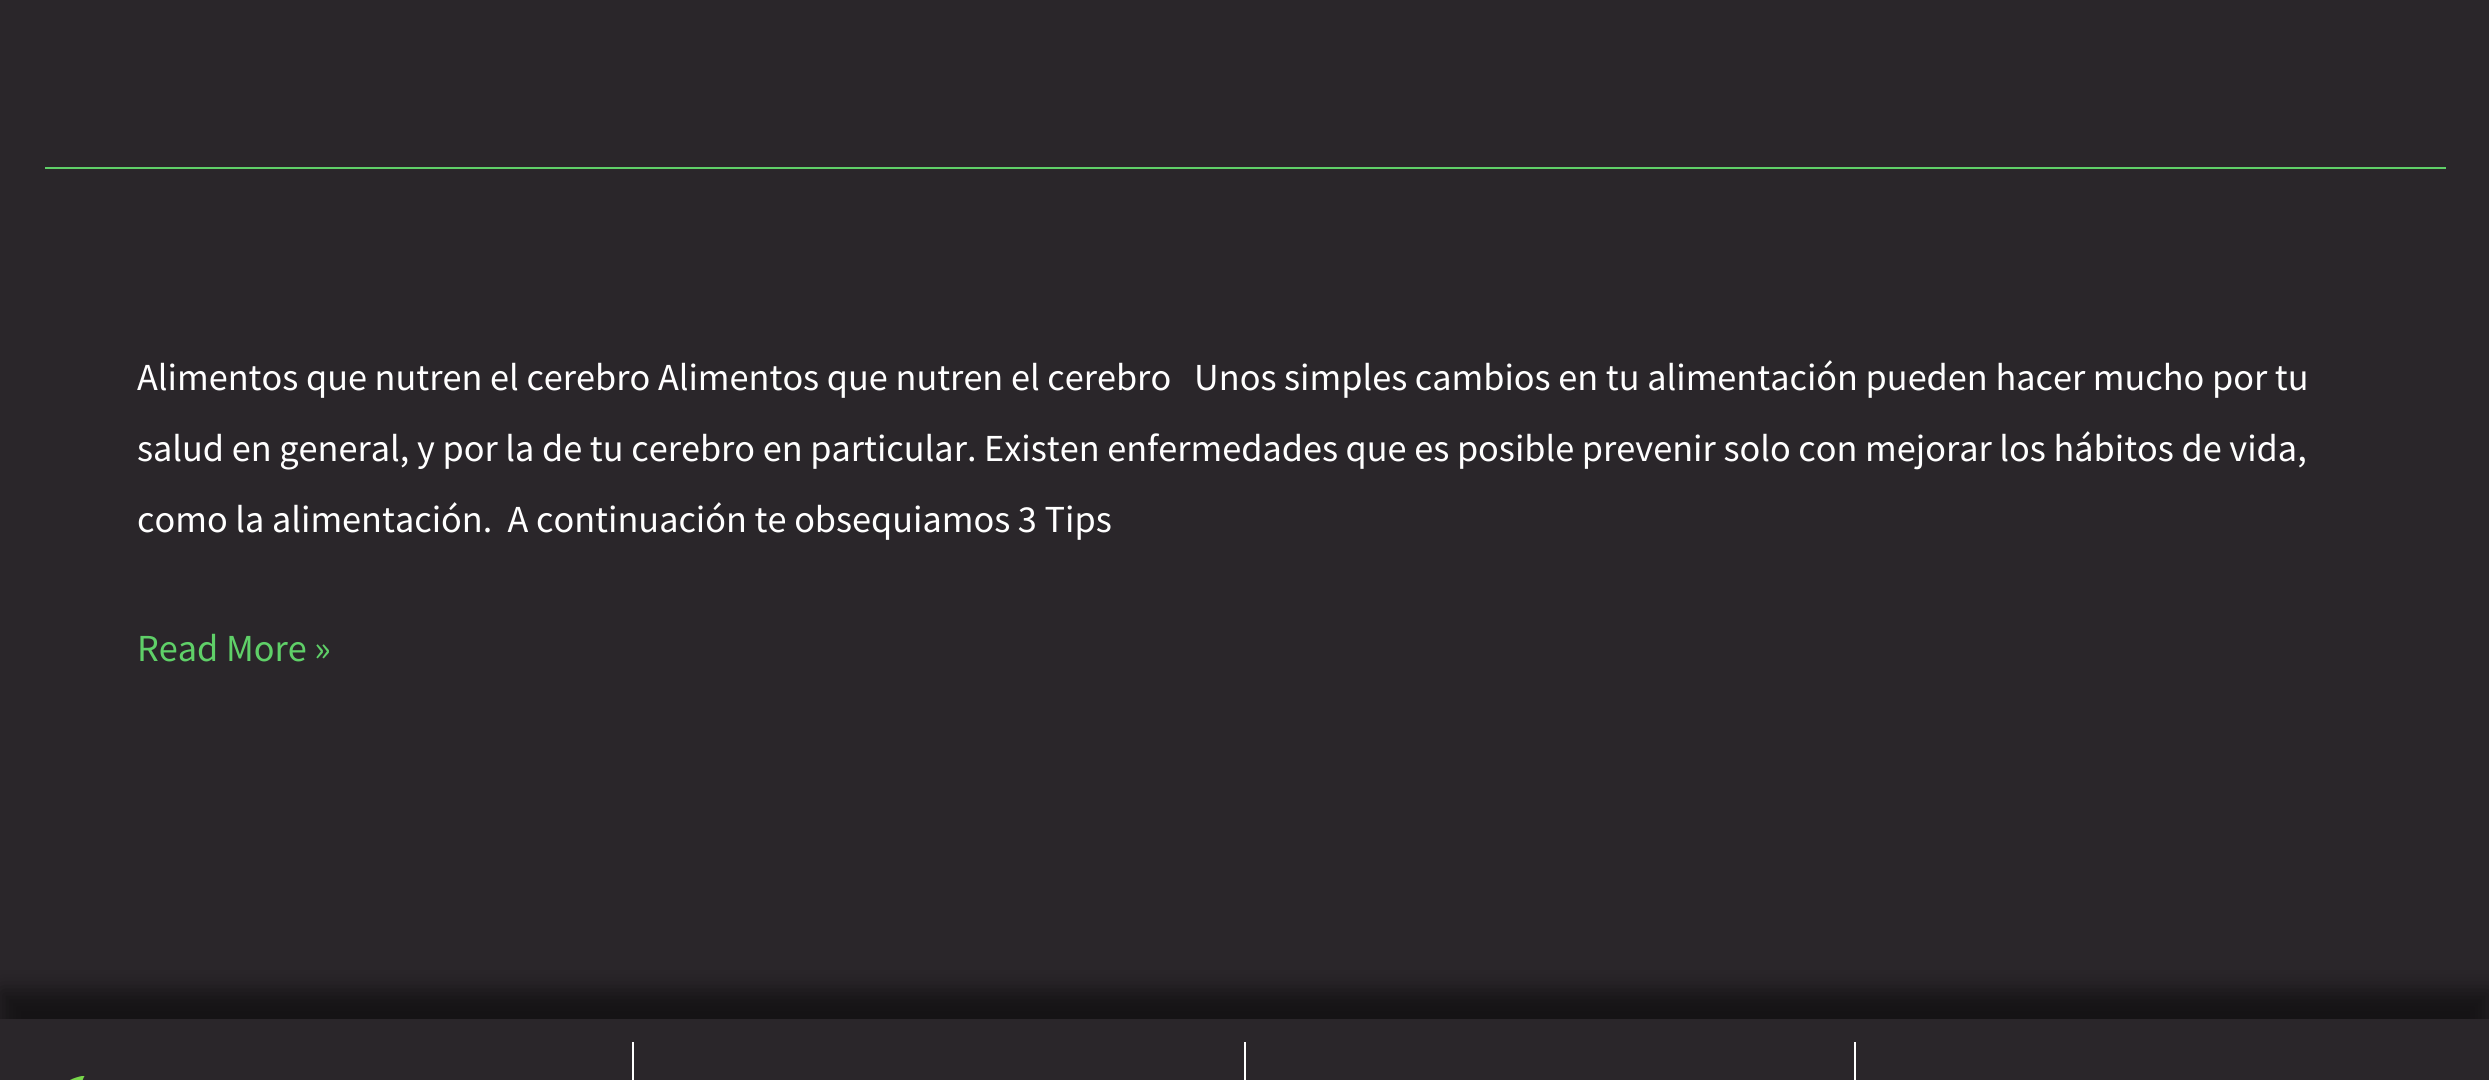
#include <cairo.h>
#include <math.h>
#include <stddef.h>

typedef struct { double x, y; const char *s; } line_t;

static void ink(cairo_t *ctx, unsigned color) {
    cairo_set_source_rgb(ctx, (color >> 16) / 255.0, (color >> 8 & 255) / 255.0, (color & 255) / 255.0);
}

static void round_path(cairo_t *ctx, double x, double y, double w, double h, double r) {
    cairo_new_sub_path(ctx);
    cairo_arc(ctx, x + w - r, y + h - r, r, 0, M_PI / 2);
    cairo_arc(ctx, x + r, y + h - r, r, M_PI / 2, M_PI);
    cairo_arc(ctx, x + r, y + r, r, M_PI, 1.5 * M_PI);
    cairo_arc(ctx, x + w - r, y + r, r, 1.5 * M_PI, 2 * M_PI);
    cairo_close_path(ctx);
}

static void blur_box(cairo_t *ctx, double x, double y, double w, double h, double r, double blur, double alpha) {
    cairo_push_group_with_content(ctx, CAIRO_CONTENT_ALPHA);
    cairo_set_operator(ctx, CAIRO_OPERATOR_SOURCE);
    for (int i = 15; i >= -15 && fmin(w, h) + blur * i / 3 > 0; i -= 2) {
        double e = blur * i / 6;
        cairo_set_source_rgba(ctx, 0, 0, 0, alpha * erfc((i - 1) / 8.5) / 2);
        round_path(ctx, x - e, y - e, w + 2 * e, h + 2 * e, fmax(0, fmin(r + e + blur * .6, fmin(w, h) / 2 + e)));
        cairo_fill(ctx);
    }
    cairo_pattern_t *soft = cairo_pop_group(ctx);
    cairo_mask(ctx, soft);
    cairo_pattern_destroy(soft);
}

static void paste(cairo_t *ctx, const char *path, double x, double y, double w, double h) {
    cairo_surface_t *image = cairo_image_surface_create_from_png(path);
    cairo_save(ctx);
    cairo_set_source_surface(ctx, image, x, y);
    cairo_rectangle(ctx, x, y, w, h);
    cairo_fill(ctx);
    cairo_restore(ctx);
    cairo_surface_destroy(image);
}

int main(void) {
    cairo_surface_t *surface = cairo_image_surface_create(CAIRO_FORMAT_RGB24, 2489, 1080);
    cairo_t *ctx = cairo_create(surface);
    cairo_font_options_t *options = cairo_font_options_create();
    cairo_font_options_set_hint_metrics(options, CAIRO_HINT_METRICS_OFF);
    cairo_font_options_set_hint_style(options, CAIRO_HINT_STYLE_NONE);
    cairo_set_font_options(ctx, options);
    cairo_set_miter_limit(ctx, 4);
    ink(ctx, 0x2A262A);
    cairo_paint(ctx);
    ink(ctx, 0x5FD068);
    cairo_rectangle(ctx, 45, 167, 2401, 2);
    cairo_fill(ctx);
    cairo_select_font_face(ctx, "Source Sans Pro", CAIRO_FONT_SLANT_NORMAL, CAIRO_FONT_WEIGHT_NORMAL);
    cairo_set_font_size(ctx, 38.25);
    ink(ctx, 0xFFFFFF);
    {
        static const line_t items[] = {
            {137, 390, "Alimentos que nutren el cerebro Alimentos que nutren el cerebro   Unos simples cambios en tu alimentación pueden hacer mucho por tu"},
            {137, 461, "salud en general, y por la de tu cerebro en particular. Existen enfermedades que es posible prevenir solo con mejorar los hábitos de vida,"},
            {137, 532, "como la alimentación.  A continuación te obsequiamos 3 Tips"},
        };
        for (size_t i = 0; i < sizeof items / sizeof *items; i++) {
            cairo_move_to(ctx, items[i].x, items[i].y);
            cairo_show_text(ctx, items[i].s);
        }
    }
    ink(ctx, 0x5FD068);
    cairo_move_to(ctx, 137, 661);
    cairo_show_text(ctx, "Read More »");
    ink(ctx, 0x000000);
    blur_box(ctx, 0, 990, 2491, 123, 0, 11, 0.5);
    ink(ctx, 0x2A262A);
    cairo_rectangle(ctx, 0, 1019, 2489, 61);
    cairo_fill(ctx);
    ink(ctx, 0xFFFFFF);
    cairo_rectangle(ctx, 632, 1042, 2, 38);
    cairo_fill(ctx);
    paste(ctx, "media/1.png", 70, 1076, 15, 4);
    cairo_rectangle(ctx, 1244, 1042, 2, 38);
    cairo_fill(ctx);
    cairo_rectangle(ctx, 1854, 1042, 2, 38);
    cairo_fill(ctx);
    cairo_surface_write_to_png(surface, "image.png");
    cairo_font_options_destroy(options);
    cairo_destroy(ctx);
    cairo_surface_destroy(surface);
    return 0;
}
